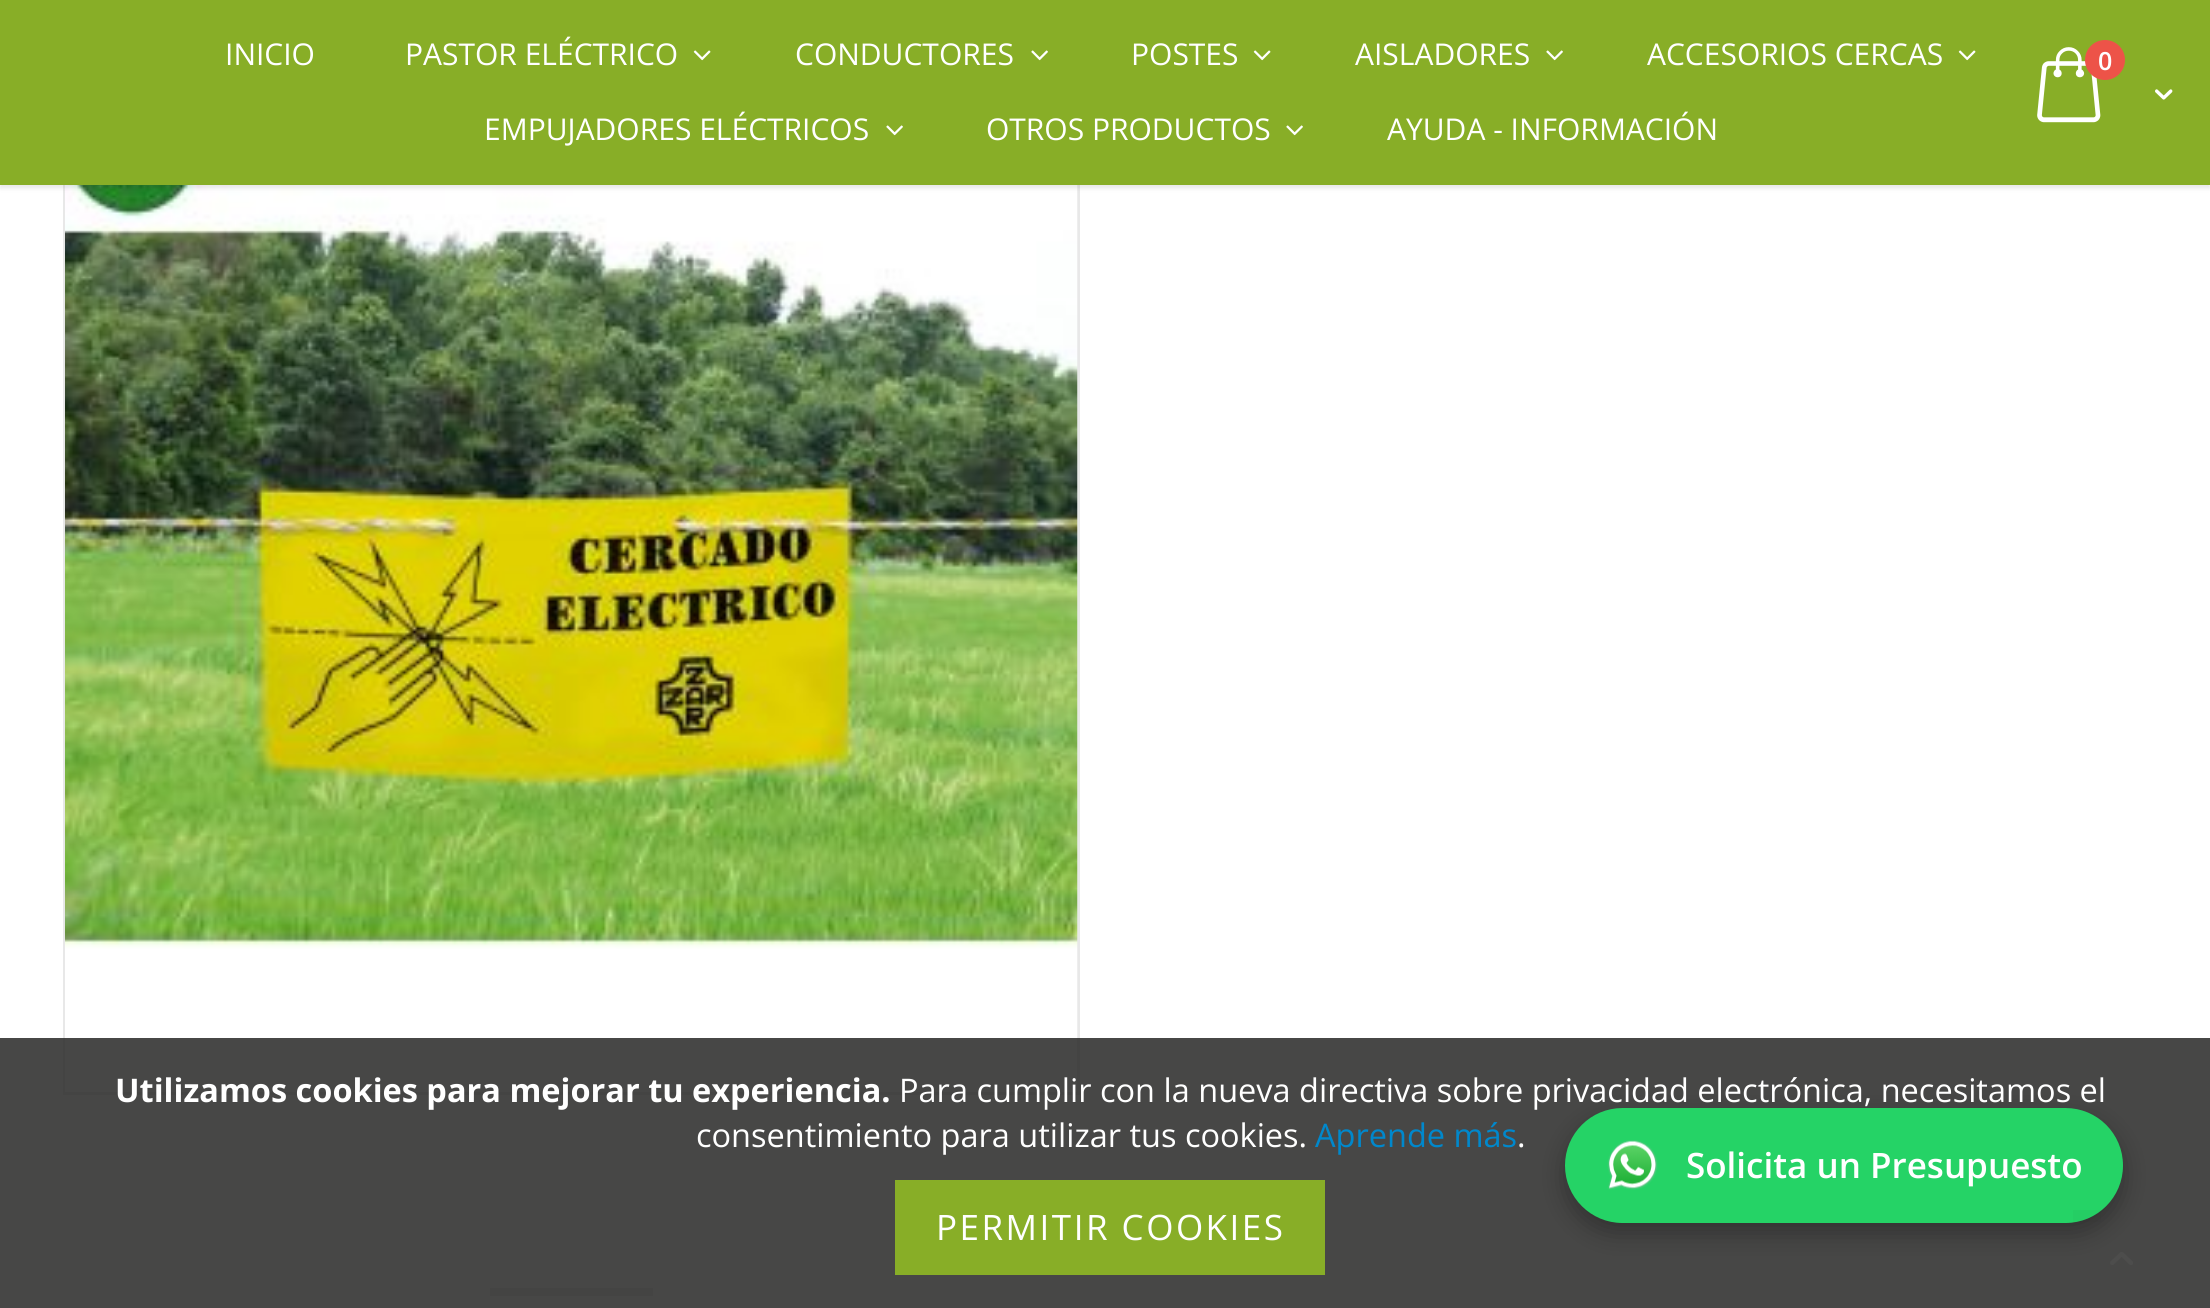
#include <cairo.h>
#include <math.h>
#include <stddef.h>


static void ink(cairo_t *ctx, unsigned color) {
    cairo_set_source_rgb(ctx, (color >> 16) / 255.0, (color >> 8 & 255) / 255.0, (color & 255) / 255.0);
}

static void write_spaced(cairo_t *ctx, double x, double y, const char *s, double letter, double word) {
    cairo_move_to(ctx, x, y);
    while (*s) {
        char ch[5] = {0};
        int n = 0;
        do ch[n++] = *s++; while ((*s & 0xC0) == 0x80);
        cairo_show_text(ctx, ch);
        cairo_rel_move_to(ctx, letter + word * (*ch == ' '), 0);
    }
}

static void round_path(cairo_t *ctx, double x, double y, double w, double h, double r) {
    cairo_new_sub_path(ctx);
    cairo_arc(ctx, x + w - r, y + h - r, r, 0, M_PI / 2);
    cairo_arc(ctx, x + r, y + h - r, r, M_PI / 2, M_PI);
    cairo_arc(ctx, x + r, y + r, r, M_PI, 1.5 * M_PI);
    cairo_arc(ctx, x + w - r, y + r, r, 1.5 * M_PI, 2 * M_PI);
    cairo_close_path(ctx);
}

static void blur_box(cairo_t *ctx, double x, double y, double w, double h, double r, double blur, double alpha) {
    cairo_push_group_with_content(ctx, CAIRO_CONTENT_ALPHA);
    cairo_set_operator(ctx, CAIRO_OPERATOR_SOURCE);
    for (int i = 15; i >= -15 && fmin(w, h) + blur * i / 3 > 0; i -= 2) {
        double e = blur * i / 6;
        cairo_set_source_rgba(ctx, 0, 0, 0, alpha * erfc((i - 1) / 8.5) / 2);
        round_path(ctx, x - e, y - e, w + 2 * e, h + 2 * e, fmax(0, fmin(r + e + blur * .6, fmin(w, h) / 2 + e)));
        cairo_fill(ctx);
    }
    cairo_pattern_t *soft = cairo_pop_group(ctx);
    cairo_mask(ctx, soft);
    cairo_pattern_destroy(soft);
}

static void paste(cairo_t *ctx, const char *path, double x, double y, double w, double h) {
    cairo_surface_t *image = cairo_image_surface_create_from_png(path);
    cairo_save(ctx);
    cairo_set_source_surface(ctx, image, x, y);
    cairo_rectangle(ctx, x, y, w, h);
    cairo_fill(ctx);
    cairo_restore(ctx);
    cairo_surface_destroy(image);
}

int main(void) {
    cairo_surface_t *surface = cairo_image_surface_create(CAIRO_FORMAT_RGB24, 2210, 1308);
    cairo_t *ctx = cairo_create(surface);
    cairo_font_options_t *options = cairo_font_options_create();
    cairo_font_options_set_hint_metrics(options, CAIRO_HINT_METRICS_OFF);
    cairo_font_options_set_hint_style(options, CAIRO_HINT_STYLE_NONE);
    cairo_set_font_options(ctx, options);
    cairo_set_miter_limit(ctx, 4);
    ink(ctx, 0xFFFFFF);
    cairo_paint(ctx);
    cairo_rectangle(ctx, 64.5, 79.5, 1014, 1014);
    ink(ctx, 0xE8E8E8);
    cairo_set_line_width(ctx, 3);
    cairo_stroke(ctx);
    paste(ctx, "media/5.png", 65, 185, 1013, 908);
    ink(ctx, 0x000000);
    blur_box(ctx, 0, 3, 2210, 185, 0, 2.5, 0.1);
    ink(ctx, 0x88AE27);
    cairo_rectangle(ctx, 0, 0, 2210, 185);
    cairo_fill(ctx);
    cairo_select_font_face(ctx, "Open Sans", CAIRO_FONT_SLANT_NORMAL, CAIRO_FONT_WEIGHT_NORMAL);
    cairo_set_font_size(ctx, 30);
    ink(ctx, 0xFFFFFF);
    cairo_move_to(ctx, 225, 65);
    cairo_show_text(ctx, "INICIO");
    cairo_move_to(ctx, 405, 65);
    cairo_show_text(ctx, "PASTOR ELÉCTRICO");
    paste(ctx, "media/1.png", 693, 50, 18, 11);
    cairo_move_to(ctx, 795, 65);
    cairo_show_text(ctx, "CONDUCTORES");
    paste(ctx, "media/2.png", 1031, 50, 17, 11);
    cairo_move_to(ctx, 1131, 65);
    cairo_show_text(ctx, "POSTES");
    paste(ctx, "media/1.png", 1253, 50, 18, 11);
    cairo_move_to(ctx, 1355, 65);
    cairo_show_text(ctx, "AISLADORES");
    paste(ctx, "media/2.png", 1546, 50, 17, 11);
    cairo_move_to(ctx, 1647, 65);
    cairo_show_text(ctx, "ACCESORIOS CERCAS");
    paste(ctx, "media/1.png", 1958, 50, 18, 11);
    cairo_move_to(ctx, 484, 140);
    cairo_show_text(ctx, "EMPUJADORES ELÉCTRICOS");
    paste(ctx, "media/2.png", 886, 125, 17, 11);
    cairo_move_to(ctx, 986, 140);
    cairo_show_text(ctx, "OTROS PRODUCTOS");
    paste(ctx, "media/2.png", 1286, 125, 17, 11);
    cairo_move_to(ctx, 1387, 140);
    cairo_show_text(ctx, "AYUDA - INFORMACIÓN");
    paste(ctx, "media/3.png", 2037, 47, 64, 76);
    ink(ctx, 0xED5348);
    cairo_arc(ctx, 2105, 60, 20, 0, 2 * M_PI);
    cairo_fill(ctx);
    cairo_select_font_face(ctx, "Open Sans SemiBold", CAIRO_FONT_SLANT_NORMAL, CAIRO_FONT_WEIGHT_NORMAL);
    cairo_set_font_size(ctx, 25);
    ink(ctx, 0xFFFFFF);
    cairo_move_to(ctx, 2098, 70);
    cairo_show_text(ctx, "0");
    paste(ctx, "media/4.png", 2155, 89, 18, 11);
    ink(ctx, 0xEAEAEA);
    cairo_rectangle(ctx, 490, 1288, 163, 8);
    cairo_fill(ctx);
    cairo_set_source_rgba(ctx, 0.153, 0.153, 0.149, 0.85);
    cairo_rectangle(ctx, 0, 1038, 2210, 270);
    cairo_fill(ctx);
    ink(ctx, 0x000000);
    blur_box(ctx, 1565, 1118, 558, 115, 57.5, 12.5, 0.3);
    cairo_select_font_face(ctx, "Open Sans", CAIRO_FONT_SLANT_NORMAL, CAIRO_FONT_WEIGHT_NORMAL);
    cairo_set_font_size(ctx, 32.5);
    ink(ctx, 0xFFFFFF);
    cairo_move_to(ctx, 899, 1102);
    cairo_show_text(ctx, "Para cumplir con la nueva directiva sobre privacidad electrónica, necesitamos el");
    ink(ctx, 0x25D366);
    round_path(ctx, 1565, 1108, 558, 115, 57.5);
    cairo_fill(ctx);
    cairo_set_source_rgba(ctx, 0.251, 0.251, 0.251, 0.03);
    cairo_rectangle(ctx, 2073, 1210, 28, 12);
    cairo_fill(ctx);
    paste(ctx, "media/6.png", 2110, 1252, 23, 13);
    cairo_select_font_face(ctx, "Open Sans", CAIRO_FONT_SLANT_NORMAL, CAIRO_FONT_WEIGHT_BOLD);
    ink(ctx, 0xFFFFFF);
    cairo_move_to(ctx, 115, 1102);
    cairo_show_text(ctx, "Utilizamos cookies para mejorar tu experiencia.");
    cairo_select_font_face(ctx, "Open Sans", CAIRO_FONT_SLANT_NORMAL, CAIRO_FONT_WEIGHT_NORMAL);
    cairo_move_to(ctx, 696, 1147);
    cairo_show_text(ctx, "consentimiento para utilizar tus cookies.");
    ink(ctx, 0x0088CC);
    cairo_move_to(ctx, 1315, 1147);
    cairo_show_text(ctx, "Aprende más");
    ink(ctx, 0xFFFFFF);
    cairo_move_to(ctx, 1517, 1147);
    cairo_show_text(ctx, ".");
    ink(ctx, 0x88AE27);
    cairo_rectangle(ctx, 895, 1180, 430, 95);
    cairo_fill(ctx);
    cairo_set_font_size(ctx, 35);
    ink(ctx, 0xFFFFFF);
    write_spaced(ctx, 936, 1240, "PERMITIR COOKIES", 2.5, 0);
    paste(ctx, "media/7.png", 1607, 1140, 51, 50);
    cairo_select_font_face(ctx, "Open Sans SemiBold", CAIRO_FONT_SLANT_NORMAL, CAIRO_FONT_WEIGHT_NORMAL);
    cairo_move_to(ctx, 1686, 1178);
    cairo_show_text(ctx, "Solicita un Presupuesto");
    cairo_surface_write_to_png(surface, "image.png");
    cairo_font_options_destroy(options);
    cairo_destroy(ctx);
    cairo_surface_destroy(surface);
    return 0;
}
